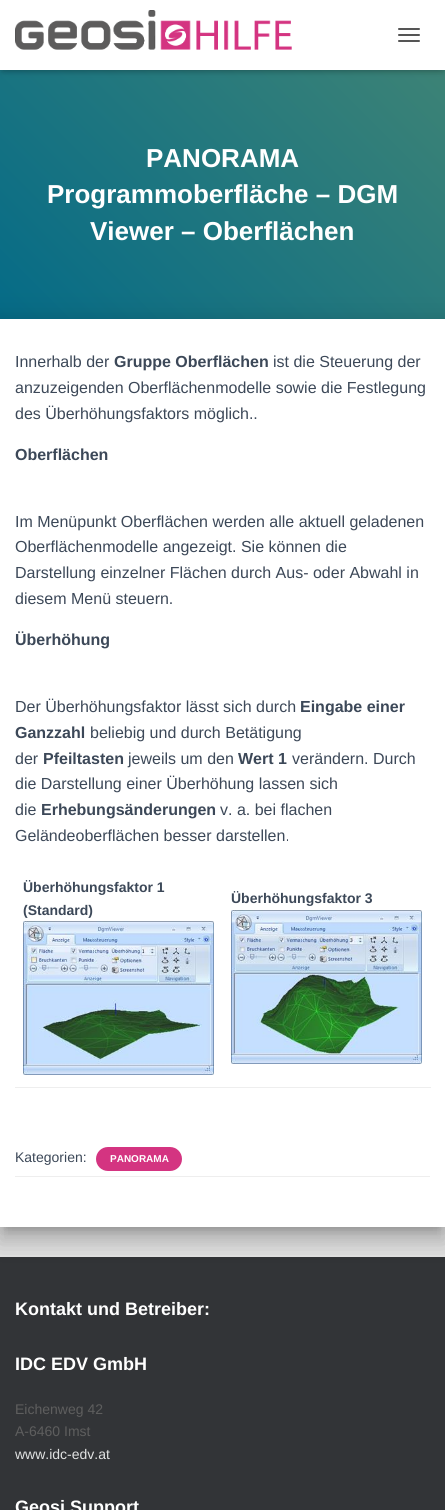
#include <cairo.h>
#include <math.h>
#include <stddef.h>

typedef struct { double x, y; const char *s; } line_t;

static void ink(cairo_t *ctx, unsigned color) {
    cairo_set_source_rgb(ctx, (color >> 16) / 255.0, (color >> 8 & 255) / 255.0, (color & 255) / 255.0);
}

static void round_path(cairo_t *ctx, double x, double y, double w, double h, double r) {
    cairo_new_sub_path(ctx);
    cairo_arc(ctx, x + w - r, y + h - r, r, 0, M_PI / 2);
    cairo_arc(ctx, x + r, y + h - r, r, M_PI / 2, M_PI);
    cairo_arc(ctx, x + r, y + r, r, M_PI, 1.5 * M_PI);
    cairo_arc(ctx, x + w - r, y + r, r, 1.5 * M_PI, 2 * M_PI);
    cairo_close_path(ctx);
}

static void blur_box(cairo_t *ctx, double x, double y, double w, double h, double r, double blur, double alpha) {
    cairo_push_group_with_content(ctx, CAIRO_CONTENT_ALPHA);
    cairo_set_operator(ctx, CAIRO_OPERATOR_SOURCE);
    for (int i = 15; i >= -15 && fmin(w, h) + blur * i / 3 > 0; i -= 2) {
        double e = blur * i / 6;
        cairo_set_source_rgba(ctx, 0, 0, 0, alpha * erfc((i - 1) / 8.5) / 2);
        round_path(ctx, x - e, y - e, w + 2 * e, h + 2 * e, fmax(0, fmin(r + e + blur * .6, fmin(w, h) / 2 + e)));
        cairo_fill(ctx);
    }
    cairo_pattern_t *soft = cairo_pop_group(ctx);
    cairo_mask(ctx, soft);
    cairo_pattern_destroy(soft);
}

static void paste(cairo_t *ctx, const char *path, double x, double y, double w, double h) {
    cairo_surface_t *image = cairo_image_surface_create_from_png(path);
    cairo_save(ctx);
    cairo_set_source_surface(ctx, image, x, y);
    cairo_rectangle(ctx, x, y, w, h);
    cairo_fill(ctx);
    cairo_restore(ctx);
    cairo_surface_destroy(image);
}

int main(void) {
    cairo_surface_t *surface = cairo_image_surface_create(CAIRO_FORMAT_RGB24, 445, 1510);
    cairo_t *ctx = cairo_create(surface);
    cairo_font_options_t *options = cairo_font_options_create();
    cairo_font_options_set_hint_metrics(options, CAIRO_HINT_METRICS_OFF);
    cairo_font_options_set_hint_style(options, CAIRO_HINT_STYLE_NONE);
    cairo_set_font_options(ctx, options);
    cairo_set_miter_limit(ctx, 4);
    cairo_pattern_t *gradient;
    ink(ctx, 0xE5E5E5);
    cairo_paint(ctx);
    gradient = cairo_pattern_create_linear(17, 396, 428, -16);
    cairo_pattern_add_color_stop_rgba(gradient, 0, 0, 0.412, 0.537, 1);
    cairo_pattern_add_color_stop_rgba(gradient, 1, 0.259, 0.522, 0.455, 1);
    cairo_set_source(ctx, gradient);
    cairo_pattern_destroy(gradient);
    cairo_rectangle(ctx, 0, 70, 445, 249);
    cairo_fill(ctx);
    ink(ctx, 0x000000);
    blur_box(ctx, 2, 6, 441, 66, 0, 2.5, 0.1);
    blur_box(ctx, 0, 1, 445, 70, 0, 5, 0.12);
    blur_box(ctx, 6, 7, 433, 58, 0, 5, 0.42);
    ink(ctx, 0xFFFFFF);
    cairo_rectangle(ctx, 0, 0, 445, 70);
    cairo_fill(ctx);
    paste(ctx, "media/1.png", 15, 10, 277, 40);
    ink(ctx, 0x555555);
    round_path(ctx, 398, 28, 22, 2, 1);
    cairo_fill(ctx);
    round_path(ctx, 398, 34, 22, 2, 1);
    cairo_fill(ctx);
    round_path(ctx, 398, 40, 22, 2, 1);
    cairo_fill(ctx);
    cairo_select_font_face(ctx, "Liberation Sans", CAIRO_FONT_SLANT_NORMAL, CAIRO_FONT_WEIGHT_BOLD);
    cairo_set_font_size(ctx, 26);
    ink(ctx, 0xFFFFFF);
    {
        static const line_t items[] = {
            {146, 167, "PANORAMA"},
            {47, 203, "Programmoberfläche – DGM"},
            {90, 240, "Viewer – Oberflächen"},
        };
        for (size_t i = 0; i < sizeof items / sizeof *items; i++) {
            cairo_move_to(ctx, items[i].x, items[i].y);
            cairo_show_text(ctx, items[i].s);
        }
    }
    ink(ctx, 0x000000);
    blur_box(ctx, 5, 332, 435, 898, 0, 5, 0.2);
    ink(ctx, 0x323437);
    cairo_rectangle(ctx, 0, 1257, 445, 253);
    cairo_fill(ctx);
    ink(ctx, 0x000000);
    blur_box(ctx, -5, 320, 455, 918, 0, 15, 0.12);
    blur_box(ctx, -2, 333, 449, 912, 0, 12, 0.14);
    ink(ctx, 0xFFFFFF);
    cairo_rectangle(ctx, 0, 319, 445, 908);
    cairo_fill(ctx);
    cairo_select_font_face(ctx, "Liberation Sans", CAIRO_FONT_SLANT_NORMAL, CAIRO_FONT_WEIGHT_NORMAL);
    cairo_set_font_size(ctx, 16);
    ink(ctx, 0x3C4858);
    cairo_move_to(ctx, 15, 367);
    cairo_show_text(ctx, "Innerhalb der");
    cairo_select_font_face(ctx, "Liberation Sans", CAIRO_FONT_SLANT_NORMAL, CAIRO_FONT_WEIGHT_BOLD);
    cairo_move_to(ctx, 114, 367);
    cairo_show_text(ctx, "Gruppe Oberflächen");
    cairo_select_font_face(ctx, "Liberation Sans", CAIRO_FONT_SLANT_NORMAL, CAIRO_FONT_WEIGHT_NORMAL);
    {
        static const line_t items[] = {
            {273, 367, "ist die Steuerung der"},
            {15, 393, "anzuzeigenden Oberflächenmodelle sowie die Festlegung"},
            {15, 419, "des Überhöhungsfaktors möglich.."},
        };
        for (size_t i = 0; i < sizeof items / sizeof *items; i++) {
            cairo_move_to(ctx, items[i].x, items[i].y);
            cairo_show_text(ctx, items[i].s);
        }
    }
    cairo_select_font_face(ctx, "Liberation Sans", CAIRO_FONT_SLANT_NORMAL, CAIRO_FONT_WEIGHT_BOLD);
    cairo_move_to(ctx, 15, 460);
    cairo_show_text(ctx, "Oberflächen");
    cairo_select_font_face(ctx, "Liberation Sans", CAIRO_FONT_SLANT_NORMAL, CAIRO_FONT_WEIGHT_NORMAL);
    {
        static const line_t items[] = {
            {15, 527, "Im Menüpunkt Oberflächen werden alle aktuell geladenen"},
            {15, 552, "Oberflächenmodelle angezeigt. Sie können die"},
            {15, 578, "Darstellung einzelner Flächen durch Aus- oder Abwahl in"},
            {15, 604, "diesem Menü steuern."},
        };
        for (size_t i = 0; i < sizeof items / sizeof *items; i++) {
            cairo_move_to(ctx, items[i].x, items[i].y);
            cairo_show_text(ctx, items[i].s);
        }
    }
    cairo_select_font_face(ctx, "Liberation Sans", CAIRO_FONT_SLANT_NORMAL, CAIRO_FONT_WEIGHT_BOLD);
    cairo_move_to(ctx, 15, 645);
    cairo_show_text(ctx, "Überhöhung");
    cairo_select_font_face(ctx, "Liberation Sans", CAIRO_FONT_SLANT_NORMAL, CAIRO_FONT_WEIGHT_NORMAL);
    cairo_move_to(ctx, 15, 712);
    cairo_show_text(ctx, "Der Überhöhungsfaktor lässt sich durch");
    cairo_select_font_face(ctx, "Liberation Sans", CAIRO_FONT_SLANT_NORMAL, CAIRO_FONT_WEIGHT_BOLD);
    cairo_move_to(ctx, 300, 712);
    cairo_show_text(ctx, "Eingabe einer");
    cairo_move_to(ctx, 15, 738);
    cairo_show_text(ctx, "Ganzzahl");
    cairo_select_font_face(ctx, "Liberation Sans", CAIRO_FONT_SLANT_NORMAL, CAIRO_FONT_WEIGHT_NORMAL);
    cairo_move_to(ctx, 90, 738);
    cairo_show_text(ctx, "beliebig und durch Betätigung");
    cairo_move_to(ctx, 15, 764);
    cairo_show_text(ctx, "der");
    cairo_select_font_face(ctx, "Liberation Sans", CAIRO_FONT_SLANT_NORMAL, CAIRO_FONT_WEIGHT_BOLD);
    cairo_move_to(ctx, 43, 764);
    cairo_show_text(ctx, "Pfeiltasten");
    cairo_select_font_face(ctx, "Liberation Sans", CAIRO_FONT_SLANT_NORMAL, CAIRO_FONT_WEIGHT_NORMAL);
    cairo_move_to(ctx, 128, 764);
    cairo_show_text(ctx, "jeweils um den");
    cairo_select_font_face(ctx, "Liberation Sans", CAIRO_FONT_SLANT_NORMAL, CAIRO_FONT_WEIGHT_BOLD);
    cairo_move_to(ctx, 238, 764);
    cairo_show_text(ctx, "Wert 1");
    cairo_select_font_face(ctx, "Liberation Sans", CAIRO_FONT_SLANT_NORMAL, CAIRO_FONT_WEIGHT_NORMAL);
    {
        static const line_t items[] = {
            {292, 764, "verändern. Durch"},
            {15, 789, "die Darstellung einer Überhöhung lassen sich"},
            {15, 815, "die"},
        };
        for (size_t i = 0; i < sizeof items / sizeof *items; i++) {
            cairo_move_to(ctx, items[i].x, items[i].y);
            cairo_show_text(ctx, items[i].s);
        }
    }
    cairo_select_font_face(ctx, "Liberation Sans", CAIRO_FONT_SLANT_NORMAL, CAIRO_FONT_WEIGHT_BOLD);
    cairo_move_to(ctx, 41, 815);
    cairo_show_text(ctx, "Erhebungsänderungen");
    cairo_select_font_face(ctx, "Liberation Sans", CAIRO_FONT_SLANT_NORMAL, CAIRO_FONT_WEIGHT_NORMAL);
    cairo_move_to(ctx, 220, 815);
    cairo_show_text(ctx, "v. a. bei flachen");
    cairo_move_to(ctx, 15, 841);
    cairo_show_text(ctx, "Geländeoberflächen besser darstellen.");
    ink(ctx, 0xEEEEEE);
    cairo_rectangle(ctx, 15, 1087, 416, 1);
    cairo_fill(ctx);
    cairo_select_font_face(ctx, "Liberation Sans", CAIRO_FONT_SLANT_NORMAL, CAIRO_FONT_WEIGHT_BOLD);
    cairo_set_font_size(ctx, 14);
    ink(ctx, 0x3C4858);
    cairo_move_to(ctx, 23, 892);
    cairo_show_text(ctx, "Überhöhungsfaktor 1");
    cairo_move_to(ctx, 23, 915);
    cairo_show_text(ctx, "(Standard)");
    paste(ctx, "media/2.png", 23, 921, 191, 154);
    cairo_move_to(ctx, 231, 903);
    cairo_show_text(ctx, "Überhöhungsfaktor 3");
    paste(ctx, "media/3.png", 231, 910, 191, 154);
    cairo_select_font_face(ctx, "Liberation Sans", CAIRO_FONT_SLANT_NORMAL, CAIRO_FONT_WEIGHT_NORMAL);
    cairo_move_to(ctx, 15, 1162);
    cairo_show_text(ctx, "Kategorien:");
    ink(ctx, 0xD43481);
    round_path(ctx, 96, 1147, 86, 24, 12);
    cairo_fill(ctx);
    cairo_select_font_face(ctx, "Liberation Sans", CAIRO_FONT_SLANT_NORMAL, CAIRO_FONT_WEIGHT_BOLD);
    cairo_set_font_size(ctx, 10);
    ink(ctx, 0xFFFFFF);
    cairo_move_to(ctx, 110, 1162);
    cairo_show_text(ctx, "PANORAMA");
    ink(ctx, 0xEEEEEE);
    cairo_rectangle(ctx, 15, 1176, 415, 1);
    cairo_fill(ctx);
    cairo_set_font_size(ctx, 18);
    ink(ctx, 0xFFFFFF);
    cairo_move_to(ctx, 15, 1315);
    cairo_show_text(ctx, "Kontakt und Betreiber:");
    cairo_move_to(ctx, 15, 1370);
    cairo_show_text(ctx, "IDC EDV GmbH");
    cairo_select_font_face(ctx, "Liberation Sans", CAIRO_FONT_SLANT_NORMAL, CAIRO_FONT_WEIGHT_NORMAL);
    cairo_set_font_size(ctx, 14);
    ink(ctx, 0x5E5E5E);
    cairo_move_to(ctx, 15, 1414);
    cairo_show_text(ctx, "Eichenweg 42");
    cairo_move_to(ctx, 15, 1436);
    cairo_show_text(ctx, "A-6460 Imst");
    ink(ctx, 0xE2E3E3);
    cairo_move_to(ctx, 15, 1459);
    cairo_show_text(ctx, "www.idc-edv.at");
    cairo_select_font_face(ctx, "Liberation Sans", CAIRO_FONT_SLANT_NORMAL, CAIRO_FONT_WEIGHT_BOLD);
    cairo_set_font_size(ctx, 18);
    ink(ctx, 0xFFFFFF);
    cairo_move_to(ctx, 15, 1513);
    cairo_show_text(ctx, "Geosi Support");
    cairo_surface_write_to_png(surface, "image.png");
    cairo_font_options_destroy(options);
    cairo_destroy(ctx);
    cairo_surface_destroy(surface);
    return 0;
}
